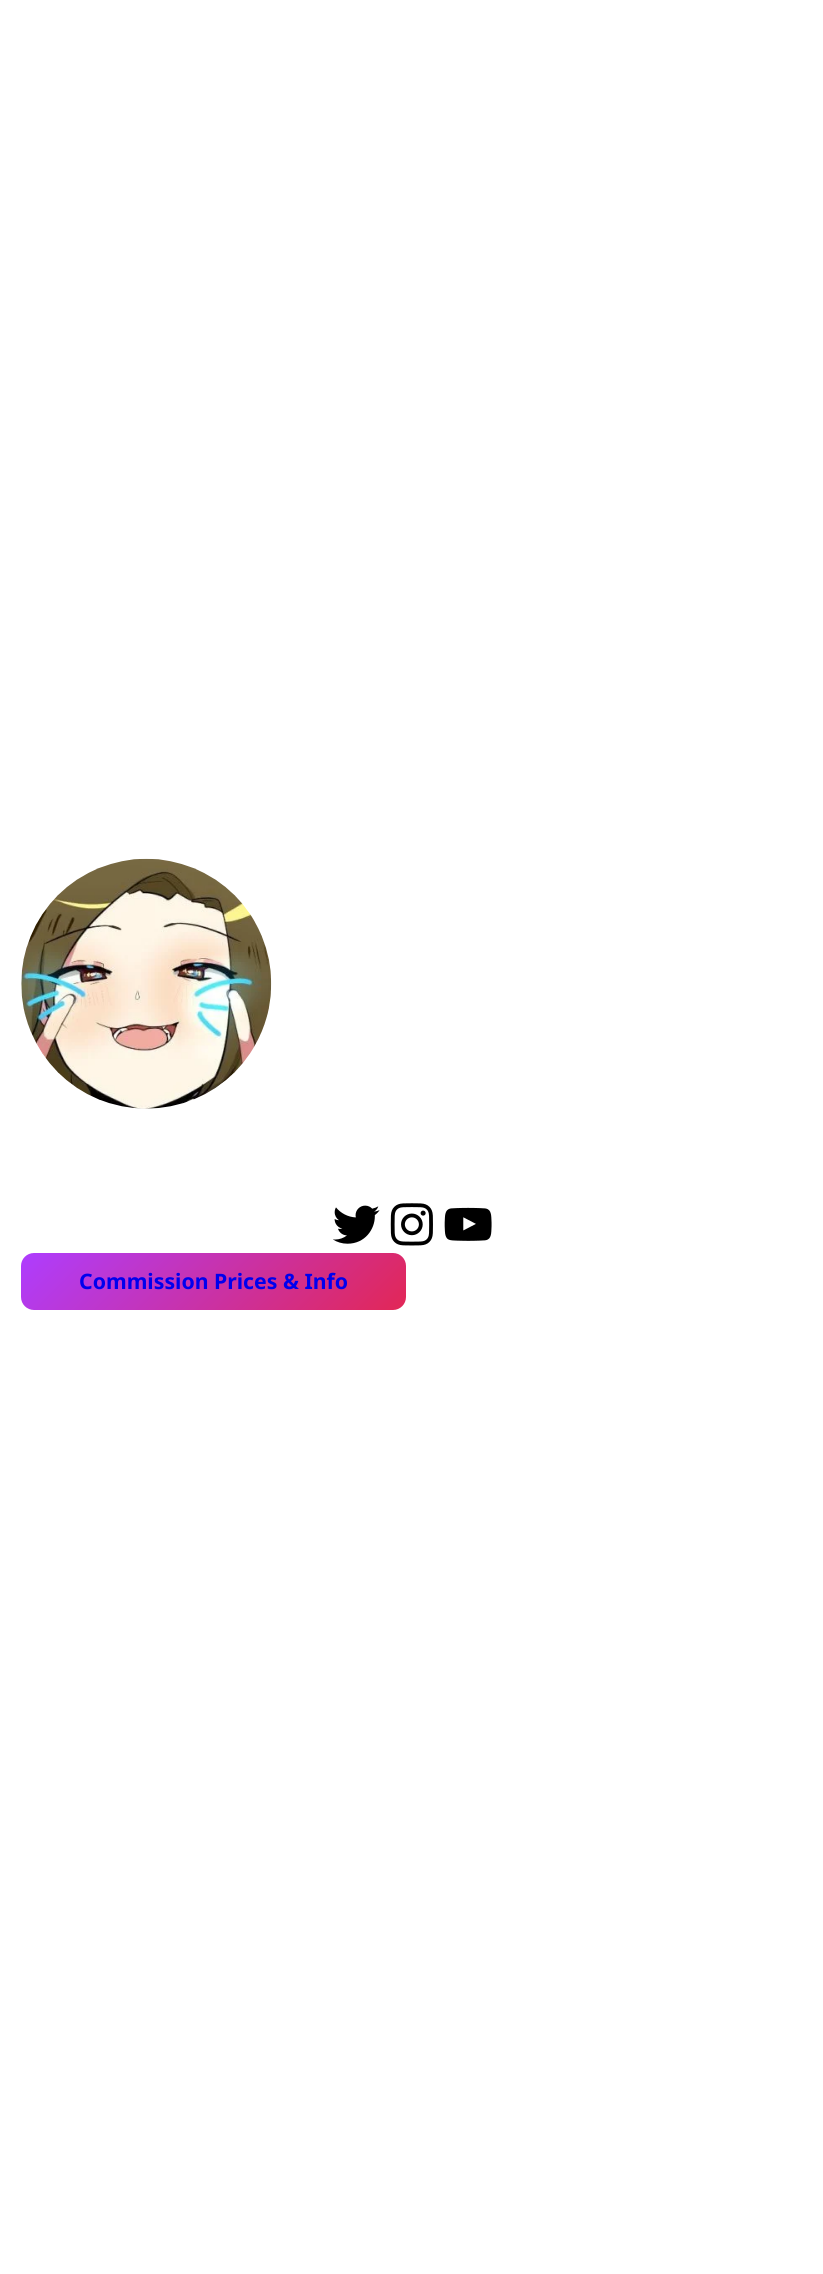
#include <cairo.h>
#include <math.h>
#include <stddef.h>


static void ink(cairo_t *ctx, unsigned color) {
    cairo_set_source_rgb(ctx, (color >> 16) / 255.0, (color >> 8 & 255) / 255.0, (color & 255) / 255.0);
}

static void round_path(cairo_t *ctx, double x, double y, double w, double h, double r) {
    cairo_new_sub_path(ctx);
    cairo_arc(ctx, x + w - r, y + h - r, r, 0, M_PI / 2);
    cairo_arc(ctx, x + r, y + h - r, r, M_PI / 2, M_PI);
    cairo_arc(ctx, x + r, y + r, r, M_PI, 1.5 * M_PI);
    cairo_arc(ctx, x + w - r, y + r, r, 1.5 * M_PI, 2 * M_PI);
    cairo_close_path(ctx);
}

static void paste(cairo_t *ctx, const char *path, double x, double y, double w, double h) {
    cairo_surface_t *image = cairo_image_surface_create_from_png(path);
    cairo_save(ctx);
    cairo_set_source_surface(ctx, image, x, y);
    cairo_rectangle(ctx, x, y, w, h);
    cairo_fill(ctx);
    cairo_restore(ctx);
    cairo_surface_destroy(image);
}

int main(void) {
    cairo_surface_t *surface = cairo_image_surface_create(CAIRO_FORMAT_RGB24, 823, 2274);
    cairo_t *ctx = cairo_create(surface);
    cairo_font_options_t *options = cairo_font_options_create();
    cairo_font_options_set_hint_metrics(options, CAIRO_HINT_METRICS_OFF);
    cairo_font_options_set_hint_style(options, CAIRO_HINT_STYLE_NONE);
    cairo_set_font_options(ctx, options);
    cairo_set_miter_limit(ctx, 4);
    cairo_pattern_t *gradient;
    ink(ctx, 0xFFFFFF);
    cairo_paint(ctx);
    paste(ctx, "media/1.png", 21, 858, 251, 251);
    paste(ctx, "media/2.png", 333, 1205, 47, 39);
    paste(ctx, "media/3.png", 390, 1203, 43, 43);
    paste(ctx, "media/4.png", 444, 1207, 48, 34);
    gradient = cairo_pattern_create_linear(103, 1171, 324, 1392);
    cairo_pattern_add_color_stop_rgba(gradient, 0, 0.682, 0.239, 1, 1);
    cairo_pattern_add_color_stop_rgba(gradient, 1, 0.886, 0.153, 0.337, 1);
    cairo_set_source(ctx, gradient);
    cairo_pattern_destroy(gradient);
    round_path(ctx, 21, 1253, 385, 57, 13);
    cairo_fill(ctx);
    cairo_select_font_face(ctx, "Noto Sans", CAIRO_FONT_SLANT_NORMAL, CAIRO_FONT_WEIGHT_BOLD);
    cairo_set_font_size(ctx, 21.25);
    ink(ctx, 0x0000EE);
    cairo_move_to(ctx, 79, 1289);
    cairo_show_text(ctx, "Commission Prices & Info");
    cairo_surface_write_to_png(surface, "image.png");
    cairo_font_options_destroy(options);
    cairo_destroy(ctx);
    cairo_surface_destroy(surface);
    return 0;
}
